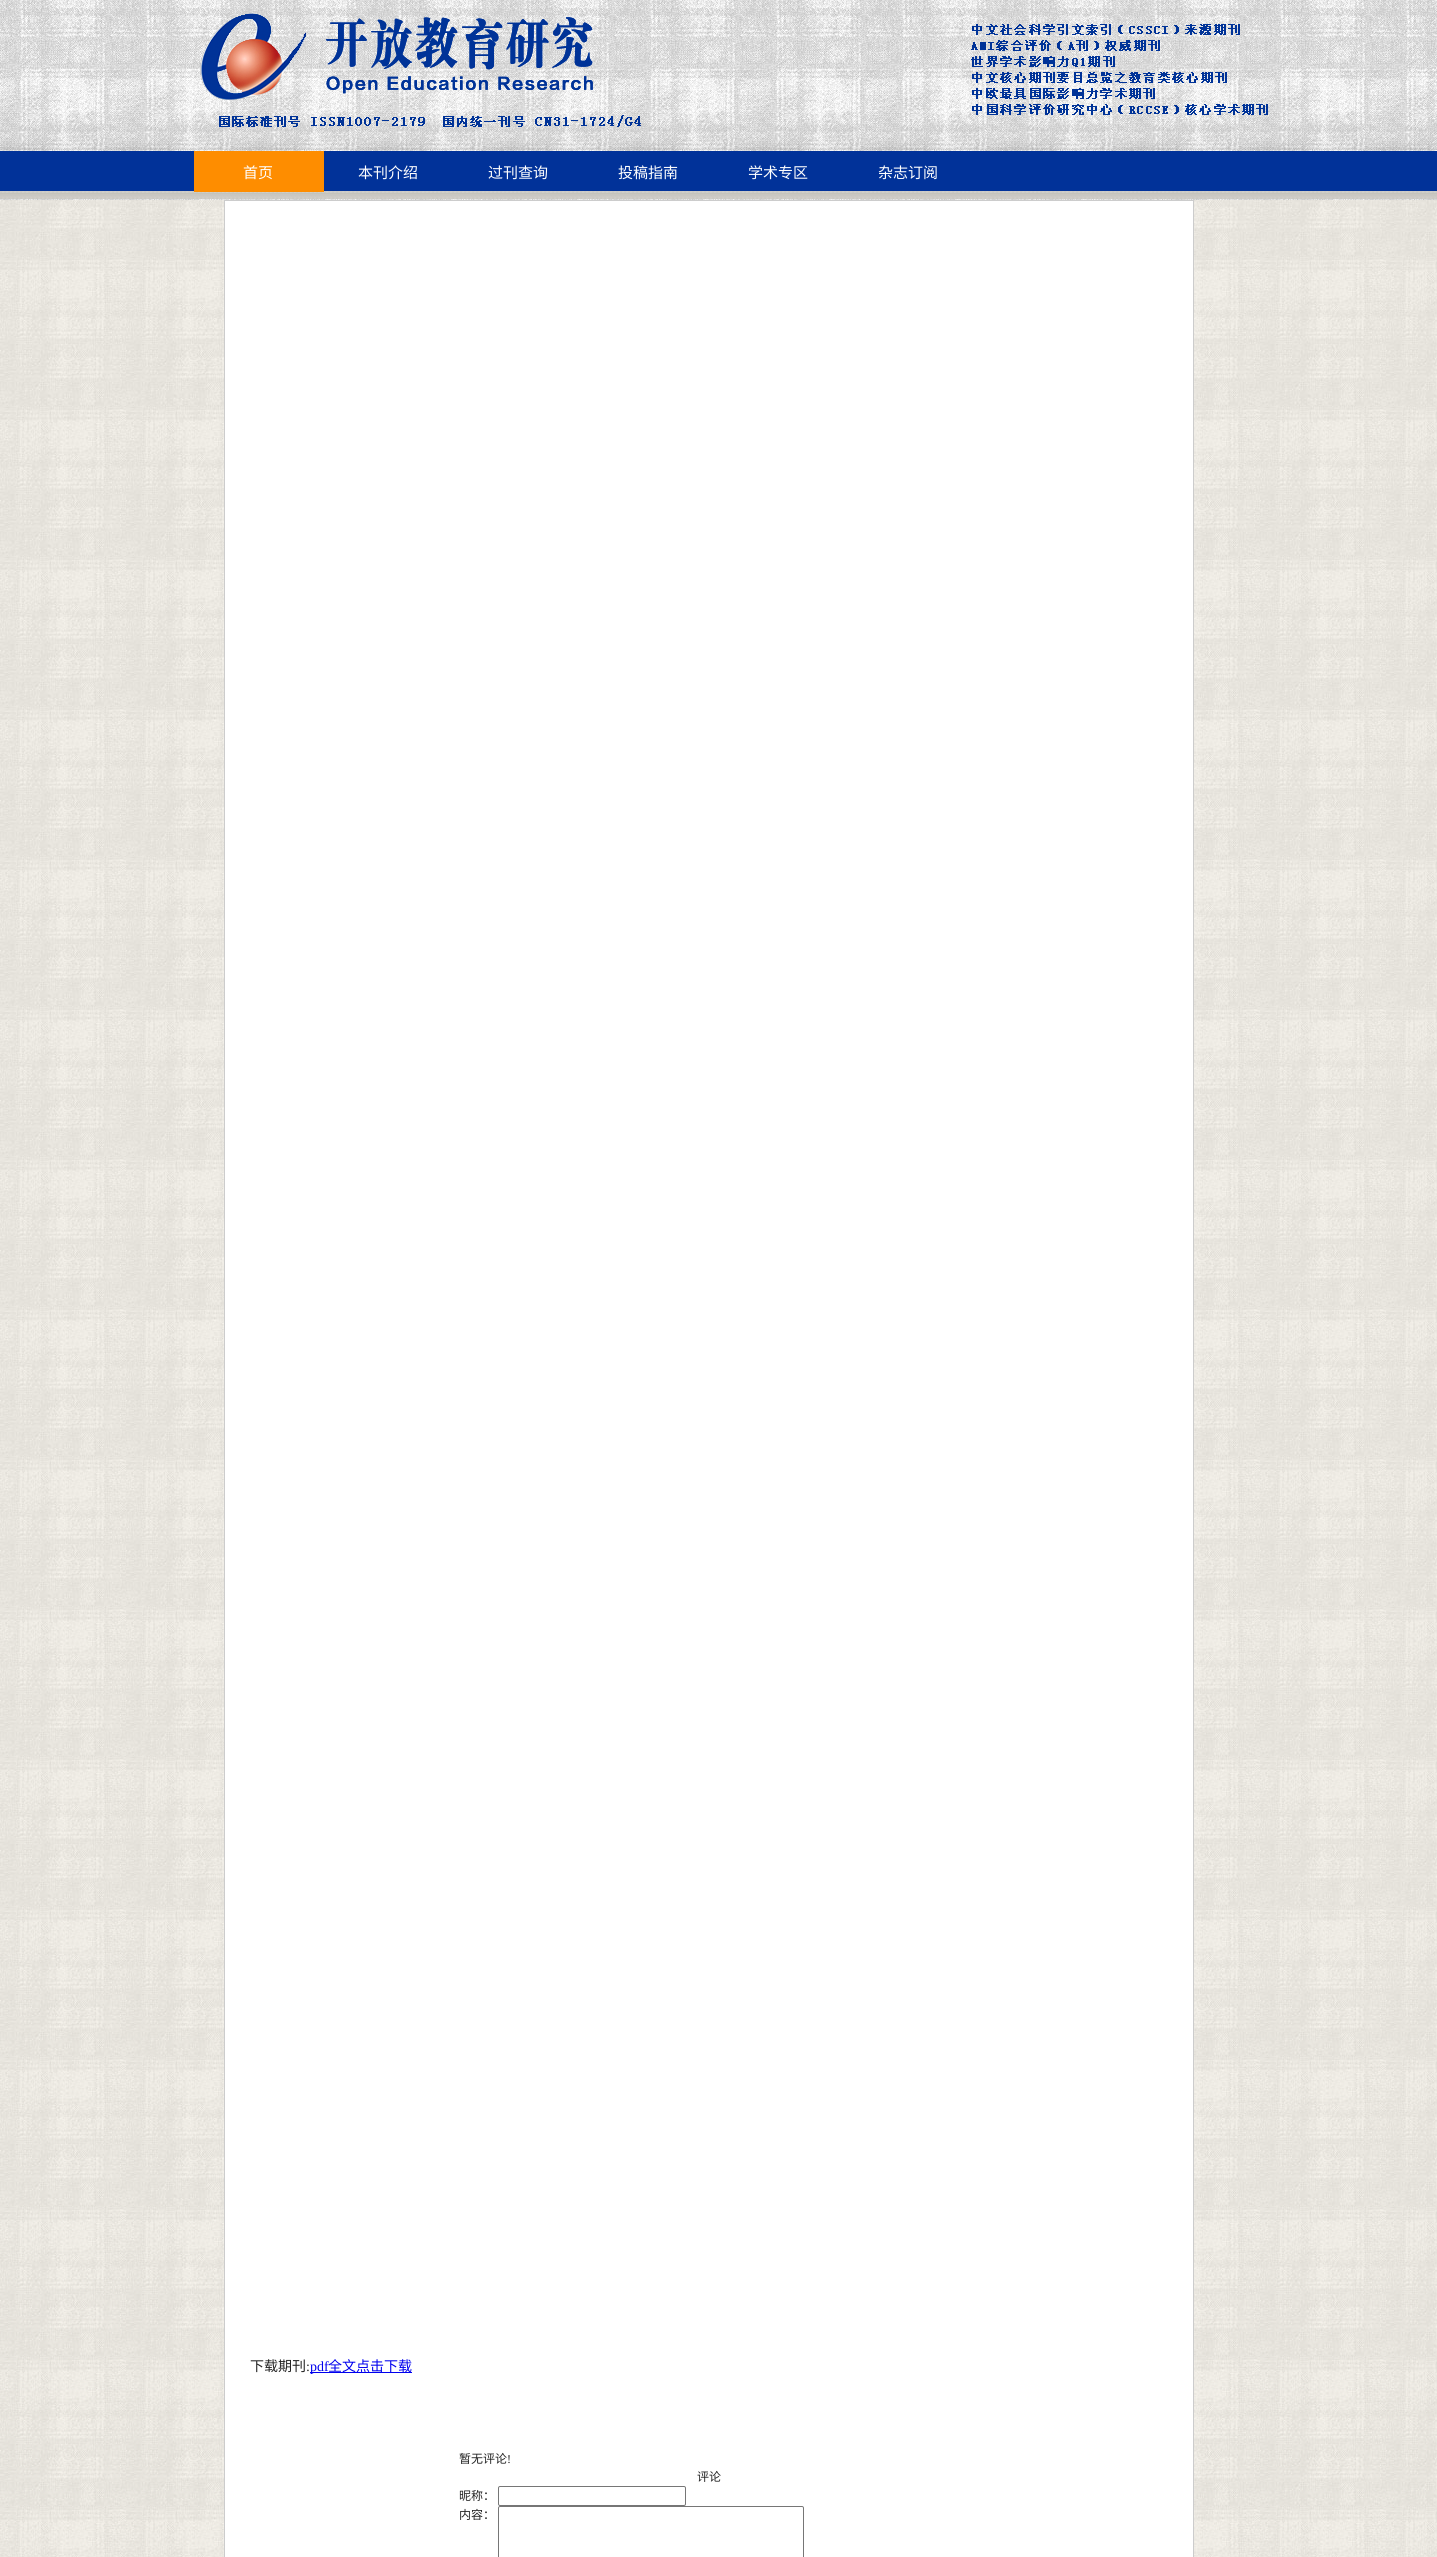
#include <cairo.h>
#include <math.h>
#include <stddef.h>

typedef struct { double x, y; const char *s; } line_t;
typedef struct { double x, y, w, h; unsigned color; } box_t;

static void ink(cairo_t *ctx, unsigned color) {
    cairo_set_source_rgb(ctx, (color >> 16) / 255.0, (color >> 8 & 255) / 255.0, (color & 255) / 255.0);
}

static void round_path(cairo_t *ctx, double x, double y, double w, double h, double r) {
    cairo_new_sub_path(ctx);
    cairo_arc(ctx, x + w - r, y + h - r, r, 0, M_PI / 2);
    cairo_arc(ctx, x + r, y + h - r, r, M_PI / 2, M_PI);
    cairo_arc(ctx, x + r, y + r, r, M_PI, 1.5 * M_PI);
    cairo_arc(ctx, x + w - r, y + r, r, 1.5 * M_PI, 2 * M_PI);
    cairo_close_path(ctx);
}

static void paste(cairo_t *ctx, const char *path, double x, double y, double w, double h) {
    cairo_surface_t *image = cairo_image_surface_create_from_png(path);
    cairo_save(ctx);
    cairo_set_source_surface(ctx, image, x, y);
    cairo_rectangle(ctx, x, y, w, h);
    cairo_fill(ctx);
    cairo_restore(ctx);
    cairo_surface_destroy(image);
}

int main(void) {
    cairo_surface_t *surface = cairo_image_surface_create(CAIRO_FORMAT_RGB24, 1437, 2557);
    cairo_t *ctx = cairo_create(surface);
    cairo_font_options_t *options = cairo_font_options_create();
    cairo_font_options_set_hint_metrics(options, CAIRO_HINT_METRICS_OFF);
    cairo_font_options_set_hint_style(options, CAIRO_HINT_STYLE_NONE);
    cairo_set_font_options(ctx, options);
    cairo_set_miter_limit(ctx, 4);
    ink(ctx, 0xFFFFFF);
    cairo_paint(ctx);
    paste(ctx, "media/1.png", 0, 0, 1437, 200);
    paste(ctx, "media/2.png", 200, 13, 1068, 114);
    paste(ctx, "media/3.png", 210, 13, 383, 87);
    paste(ctx, "media/4.png", 0, 191, 1437, 8);
    ink(ctx, 0x013299);
    cairo_rectangle(ctx, 0, 151, 1437, 40);
    cairo_fill(ctx);
    ink(ctx, 0xFE8D00);
    cairo_rectangle(ctx, 194, 151, 130, 41);
    cairo_fill(ctx);
    cairo_select_font_face(ctx, "Noto Sans CJK SC", CAIRO_FONT_SLANT_NORMAL, CAIRO_FONT_WEIGHT_NORMAL);
    cairo_set_font_size(ctx, 15);
    ink(ctx, 0xFFFFFF);
    {
        static const line_t items[] = {
            {243, 178, "首页"},
            {358, 178, "本刊介绍"},
            {488, 178, "过刊查询"},
            {618, 178, "投稿指南"},
            {748, 178, "学术专区"},
            {878, 178, "杂志订阅"},
        };
        for (size_t i = 0; i < sizeof items / sizeof *items; i++) {
            cairo_move_to(ctx, items[i].x, items[i].y);
            cairo_show_text(ctx, items[i].s);
        }
    }
    paste(ctx, "media/5.png", 0, 200, 1437, 2357);
    {
        static const box_t items[] = {
            {225, 201, 968, 2356, 0xFFFFFF},
            {224, 200, 970, 1, 0xCCCCCC},
            {1193, 200, 1, 2357, 0xCCCCCC},
            {224, 200, 1, 2357, 0xCCCCCC},
        };
        for (size_t i = 0; i < sizeof items / sizeof *items; i++) {
            ink(ctx, items[i].color);
            cairo_rectangle(ctx, items[i].x, items[i].y, items[i].w, items[i].h);
            cairo_fill(ctx);
        }
    }
    cairo_set_font_size(ctx, 14);
    ink(ctx, 0x222222);
    cairo_move_to(ctx, 250, 2371);
    cairo_show_text(ctx, "下载期刊");
    cairo_select_font_face(ctx, "Liberation Serif", CAIRO_FONT_SLANT_NORMAL, CAIRO_FONT_WEIGHT_NORMAL);
    cairo_move_to(ctx, 306, 2371);
    cairo_show_text(ctx, ":");
    ink(ctx, 0x0000EE);
    cairo_rectangle(ctx, 310, 2372, 102, 1);
    cairo_fill(ctx);
    cairo_move_to(ctx, 310, 2371);
    cairo_show_text(ctx, "pdf");
    cairo_select_font_face(ctx, "Noto Sans CJK SC", CAIRO_FONT_SLANT_NORMAL, CAIRO_FONT_WEIGHT_NORMAL);
    cairo_move_to(ctx, 328, 2371);
    cairo_show_text(ctx, "全文点击下载");
    cairo_set_font_size(ctx, 12);
    ink(ctx, 0x222222);
    cairo_move_to(ctx, 459, 2463);
    cairo_show_text(ctx, "暂无评论");
    cairo_select_font_face(ctx, "Liberation Serif", CAIRO_FONT_SLANT_NORMAL, CAIRO_FONT_WEIGHT_NORMAL);
    cairo_move_to(ctx, 507, 2463);
    cairo_show_text(ctx, "!");
    cairo_select_font_face(ctx, "Noto Sans CJK SC", CAIRO_FONT_SLANT_NORMAL, CAIRO_FONT_WEIGHT_NORMAL);
    cairo_move_to(ctx, 697, 2481);
    cairo_show_text(ctx, "评论");
    cairo_move_to(ctx, 459, 2500);
    cairo_show_text(ctx, "昵称：");
    round_path(ctx, 498.5, 2486.5, 187, 19, 1.5);
    ink(ctx, 0x767676);
    cairo_set_line_width(ctx, 1);
    cairo_stroke(ctx);
    ink(ctx, 0x222222);
    cairo_move_to(ctx, 459, 2519);
    cairo_show_text(ctx, "内容：");
    round_path(ctx, 498.5, 2506.5, 305, 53, 1.5);
    ink(ctx, 0x767676);
    cairo_stroke(ctx);
    cairo_surface_write_to_png(surface, "image.png");
    cairo_font_options_destroy(options);
    cairo_destroy(ctx);
    cairo_surface_destroy(surface);
    return 0;
}
